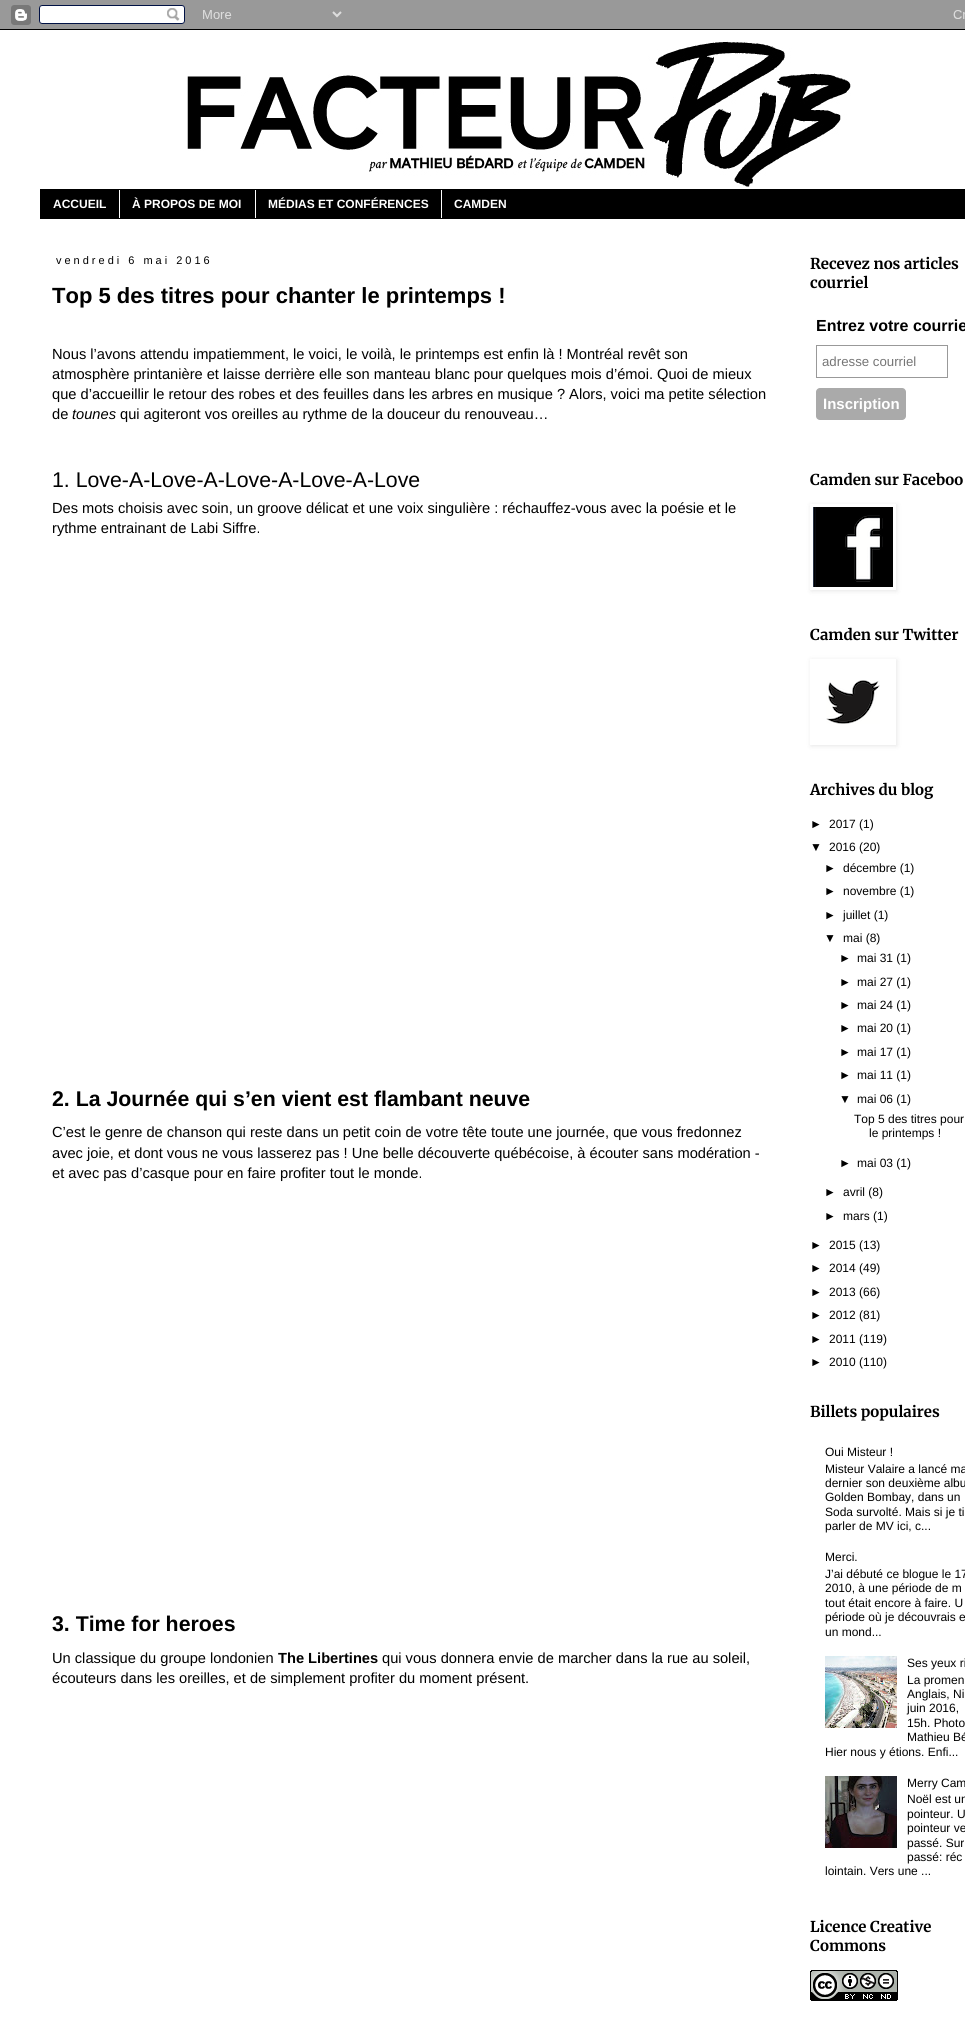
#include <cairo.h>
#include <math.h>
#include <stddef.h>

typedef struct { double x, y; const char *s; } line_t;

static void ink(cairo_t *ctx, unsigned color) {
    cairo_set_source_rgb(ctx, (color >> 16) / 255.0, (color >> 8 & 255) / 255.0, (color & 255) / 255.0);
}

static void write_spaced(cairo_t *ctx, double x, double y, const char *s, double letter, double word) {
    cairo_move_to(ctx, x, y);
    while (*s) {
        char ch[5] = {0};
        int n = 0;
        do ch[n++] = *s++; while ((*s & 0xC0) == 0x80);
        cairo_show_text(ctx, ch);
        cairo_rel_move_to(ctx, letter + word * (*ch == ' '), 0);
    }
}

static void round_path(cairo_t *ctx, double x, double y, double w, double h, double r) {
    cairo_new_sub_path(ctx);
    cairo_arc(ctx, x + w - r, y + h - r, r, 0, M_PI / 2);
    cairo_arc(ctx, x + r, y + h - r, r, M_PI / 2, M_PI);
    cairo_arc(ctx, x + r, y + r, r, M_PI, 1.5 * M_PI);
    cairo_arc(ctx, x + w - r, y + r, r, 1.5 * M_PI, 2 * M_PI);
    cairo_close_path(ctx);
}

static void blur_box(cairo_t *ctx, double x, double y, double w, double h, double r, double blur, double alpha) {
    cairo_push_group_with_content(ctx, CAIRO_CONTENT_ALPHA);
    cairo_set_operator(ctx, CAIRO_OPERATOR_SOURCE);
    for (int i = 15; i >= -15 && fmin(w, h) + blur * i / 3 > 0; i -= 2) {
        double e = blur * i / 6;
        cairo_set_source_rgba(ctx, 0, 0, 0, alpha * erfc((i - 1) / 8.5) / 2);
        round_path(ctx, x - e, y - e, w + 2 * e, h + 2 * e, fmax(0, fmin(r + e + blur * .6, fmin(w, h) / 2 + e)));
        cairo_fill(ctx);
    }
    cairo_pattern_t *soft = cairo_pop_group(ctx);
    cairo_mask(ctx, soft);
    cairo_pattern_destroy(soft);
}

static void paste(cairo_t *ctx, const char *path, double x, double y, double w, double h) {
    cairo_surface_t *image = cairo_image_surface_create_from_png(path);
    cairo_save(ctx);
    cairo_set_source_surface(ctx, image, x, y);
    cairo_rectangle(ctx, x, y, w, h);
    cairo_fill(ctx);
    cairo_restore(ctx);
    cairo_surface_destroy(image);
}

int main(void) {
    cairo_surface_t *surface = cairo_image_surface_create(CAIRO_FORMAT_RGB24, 965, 2020);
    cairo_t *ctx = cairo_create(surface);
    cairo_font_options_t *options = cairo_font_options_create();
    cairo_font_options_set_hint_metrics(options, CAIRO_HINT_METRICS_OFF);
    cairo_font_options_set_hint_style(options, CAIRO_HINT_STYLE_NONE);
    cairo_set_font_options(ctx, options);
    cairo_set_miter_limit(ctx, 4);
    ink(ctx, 0xFFFFFF);
    cairo_paint(ctx);
    paste(ctx, "media/1.png", 0, 0, 965, 30);
    paste(ctx, "media/2.png", 187, 41, 664, 146);
    ink(ctx, 0x000000);
    cairo_rectangle(ctx, 40, 189, 925, 30);
    cairo_fill(ctx);
    cairo_select_font_face(ctx, "Liberation Sans", CAIRO_FONT_SLANT_NORMAL, CAIRO_FONT_WEIGHT_BOLD);
    cairo_set_font_size(ctx, 12);
    ink(ctx, 0xFFFFFF);
    cairo_move_to(ctx, 53, 208);
    cairo_show_text(ctx, "ACCUEIL");
    cairo_rectangle(ctx, 119, 190, 1, 28);
    cairo_fill(ctx);
    cairo_move_to(ctx, 132, 208);
    cairo_show_text(ctx, "À PROPOS DE MOI");
    cairo_rectangle(ctx, 255, 190, 1, 28);
    cairo_fill(ctx);
    cairo_move_to(ctx, 268, 208);
    cairo_show_text(ctx, "MÉDIAS ET CONFÉRENCES");
    cairo_rectangle(ctx, 441, 190, 1, 28);
    cairo_fill(ctx);
    cairo_move_to(ctx, 454, 208);
    cairo_show_text(ctx, "CAMDEN");
    cairo_select_font_face(ctx, "Liberation Sans", CAIRO_FONT_SLANT_NORMAL, CAIRO_FONT_WEIGHT_NORMAL);
    cairo_set_font_size(ctx, 11);
    ink(ctx, 0x000000);
    write_spaced(ctx, 56, 264, "vendredi 6 mai 2016", 3, 0);
    cairo_select_font_face(ctx, "Liberation Sans", CAIRO_FONT_SLANT_NORMAL, CAIRO_FONT_WEIGHT_BOLD);
    cairo_set_font_size(ctx, 22);
    cairo_move_to(ctx, 52, 303);
    cairo_show_text(ctx, "Top 5 des titres pour chanter le printemps !");
    cairo_select_font_face(ctx, "Liberation Sans", CAIRO_FONT_SLANT_NORMAL, CAIRO_FONT_WEIGHT_NORMAL);
    cairo_set_font_size(ctx, 14.65);
    {
        static const line_t items[] = {
            {52, 359, "Nous l’avons attendu impatiemment, le voici, le voilà, le printemps est enfin là ! Montréal revêt son"},
            {52, 379, "atmosphère printanière et laisse derrière elle son manteau blanc pour quelques mois d’émoi. Quoi de mieux"},
            {52, 399, "que d’accueillir le retour des robes et des feuilles dans les arbres en musique ? Alors, voici ma petite sélection"},
            {52, 419, "de"},
        };
        for (size_t i = 0; i < sizeof items / sizeof *items; i++) {
            cairo_move_to(ctx, items[i].x, items[i].y);
            cairo_show_text(ctx, items[i].s);
        }
    }
    cairo_select_font_face(ctx, "Liberation Sans", CAIRO_FONT_SLANT_ITALIC, CAIRO_FONT_WEIGHT_NORMAL);
    cairo_move_to(ctx, 72, 419);
    cairo_show_text(ctx, "tounes");
    cairo_select_font_face(ctx, "Liberation Sans", CAIRO_FONT_SLANT_NORMAL, CAIRO_FONT_WEIGHT_NORMAL);
    cairo_move_to(ctx, 120, 419);
    cairo_show_text(ctx, "qui agiteront vos oreilles au rythme de la douceur du renouveau…");
    cairo_set_font_size(ctx, 21.3);
    cairo_move_to(ctx, 52, 487);
    cairo_show_text(ctx, "1. Love-A-Love-A-Love-A-Love-A-Love");
    cairo_set_font_size(ctx, 14.65);
    cairo_move_to(ctx, 52, 513);
    cairo_show_text(ctx, "Des mots choisis avec soin, un groove délicat et une voix singulière : réchauffez-vous avec la poésie et le");
    cairo_move_to(ctx, 52, 533);
    cairo_show_text(ctx, "rythme entrainant de Labi Siffre.");
    cairo_select_font_face(ctx, "Liberation Sans", CAIRO_FONT_SLANT_NORMAL, CAIRO_FONT_WEIGHT_BOLD);
    cairo_set_font_size(ctx, 21.3);
    cairo_move_to(ctx, 52, 1106);
    cairo_show_text(ctx, "2. La Journée qui s’en vient est flambant neuve");
    cairo_select_font_face(ctx, "Liberation Sans", CAIRO_FONT_SLANT_NORMAL, CAIRO_FONT_WEIGHT_NORMAL);
    cairo_set_font_size(ctx, 14.65);
    {
        static const line_t items[] = {
            {52, 1137, "C’est le genre de chanson qui reste dans un petit coin de votre tête toute une journée, que vous fredonnez"},
            {52, 1158, "avec joie, et dont vous ne vous lasserez pas ! Une belle découverte québécoise, à écouter sans modération -"},
            {52, 1178, "et avec pas d’casque pour en faire profiter tout le monde."},
        };
        for (size_t i = 0; i < sizeof items / sizeof *items; i++) {
            cairo_move_to(ctx, items[i].x, items[i].y);
            cairo_show_text(ctx, items[i].s);
        }
    }
    cairo_select_font_face(ctx, "Liberation Sans", CAIRO_FONT_SLANT_NORMAL, CAIRO_FONT_WEIGHT_BOLD);
    cairo_set_font_size(ctx, 21.3);
    cairo_move_to(ctx, 52, 1631);
    cairo_show_text(ctx, "3. Time for heroes");
    cairo_select_font_face(ctx, "Liberation Sans", CAIRO_FONT_SLANT_NORMAL, CAIRO_FONT_WEIGHT_NORMAL);
    cairo_set_font_size(ctx, 14.65);
    cairo_move_to(ctx, 52, 1663);
    cairo_show_text(ctx, "Un classique du groupe londonien");
    cairo_select_font_face(ctx, "Liberation Sans", CAIRO_FONT_SLANT_NORMAL, CAIRO_FONT_WEIGHT_BOLD);
    cairo_move_to(ctx, 278, 1663);
    cairo_show_text(ctx, "The Libertines");
    cairo_select_font_face(ctx, "Liberation Sans", CAIRO_FONT_SLANT_NORMAL, CAIRO_FONT_WEIGHT_NORMAL);
    cairo_move_to(ctx, 382, 1663);
    cairo_show_text(ctx, "qui vous donnera envie de marcher dans la rue au soleil,");
    cairo_move_to(ctx, 52, 1683);
    cairo_show_text(ctx, "écouteurs dans les oreilles, et de simplement profiter du moment présent.");
    cairo_select_font_face(ctx, "Merriweather Light", CAIRO_FONT_SLANT_NORMAL, CAIRO_FONT_WEIGHT_NORMAL);
    cairo_set_font_size(ctx, 15);
    cairo_move_to(ctx, 810, 269);
    cairo_show_text(ctx, "Recevez nos articles");
    cairo_move_to(ctx, 810, 288);
    cairo_show_text(ctx, "courriel");
    cairo_select_font_face(ctx, "Liberation Sans", CAIRO_FONT_SLANT_NORMAL, CAIRO_FONT_WEIGHT_BOLD);
    cairo_set_font_size(ctx, 16);
    cairo_move_to(ctx, 816, 331);
    cairo_show_text(ctx, "Entrez votre courrie");
    cairo_rectangle(ctx, 816.5, 345.5, 131, 32);
    ink(ctx, 0x999999);
    cairo_set_line_width(ctx, 1);
    cairo_stroke(ctx);
    cairo_select_font_face(ctx, "Liberation Sans", CAIRO_FONT_SLANT_NORMAL, CAIRO_FONT_WEIGHT_NORMAL);
    cairo_set_font_size(ctx, 13.25);
    ink(ctx, 0x757575);
    cairo_move_to(ctx, 822, 366);
    cairo_show_text(ctx, "adresse courriel");
    ink(ctx, 0xAAAAAA);
    round_path(ctx, 816, 388, 90, 32, 4);
    cairo_fill(ctx);
    cairo_select_font_face(ctx, "Liberation Sans", CAIRO_FONT_SLANT_NORMAL, CAIRO_FONT_WEIGHT_BOLD);
    cairo_set_font_size(ctx, 15);
    ink(ctx, 0xFFFFFF);
    cairo_move_to(ctx, 823, 409);
    cairo_show_text(ctx, "Inscription");
    cairo_select_font_face(ctx, "Merriweather Light", CAIRO_FONT_SLANT_NORMAL, CAIRO_FONT_WEIGHT_NORMAL);
    ink(ctx, 0x000000);
    cairo_move_to(ctx, 810, 485);
    cairo_show_text(ctx, "Camden sur Faceboo");
    cairo_save(ctx);
    cairo_set_fill_rule(ctx, CAIRO_FILL_RULE_EVEN_ODD);
    cairo_new_path(ctx);
    cairo_move_to(ctx, 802, 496);
    cairo_line_to(ctx, 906, 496);
    cairo_line_to(ctx, 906, 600);
    cairo_line_to(ctx, 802, 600);
    cairo_close_path(ctx);
    cairo_move_to(ctx, 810, 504);
    cairo_line_to(ctx, 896, 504);
    cairo_line_to(ctx, 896, 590);
    cairo_line_to(ctx, 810, 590);
    cairo_close_path(ctx);
    cairo_clip(ctx);
    ink(ctx, 0x000000);
    blur_box(ctx, 811, 505, 86, 86, 0, 2.5, 0.1);
    cairo_restore(ctx);
    paste(ctx, "media/3.png", 813, 507, 80, 80);
    cairo_move_to(ctx, 810, 640);
    cairo_show_text(ctx, "Camden sur Twitter");
    cairo_save(ctx);
    cairo_set_fill_rule(ctx, CAIRO_FILL_RULE_EVEN_ODD);
    cairo_new_path(ctx);
    cairo_move_to(ctx, 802, 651);
    cairo_line_to(ctx, 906, 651);
    cairo_line_to(ctx, 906, 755);
    cairo_line_to(ctx, 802, 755);
    cairo_close_path(ctx);
    cairo_move_to(ctx, 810, 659);
    cairo_line_to(ctx, 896, 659);
    cairo_line_to(ctx, 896, 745);
    cairo_line_to(ctx, 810, 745);
    cairo_close_path(ctx);
    cairo_clip(ctx);
    ink(ctx, 0x000000);
    blur_box(ctx, 811, 660, 86, 86, 0, 2.5, 0.1);
    cairo_restore(ctx);
    paste(ctx, "media/4.png", 826, 680, 54, 44);
    cairo_move_to(ctx, 810, 795);
    cairo_show_text(ctx, "Archives du blog");
    cairo_select_font_face(ctx, "Liberation Sans", CAIRO_FONT_SLANT_NORMAL, CAIRO_FONT_WEIGHT_NORMAL);
    cairo_set_font_size(ctx, 12);
    {
        static const line_t items[] = {
            {810, 828, "►"},
            {829, 828, "2017 (1)"},
            {810, 851, "▼"},
            {829, 851, "2016 (20)"},
            {824, 872, "►"},
            {843, 872, "décembre (1)"},
            {824, 895, "►"},
            {843, 895, "novembre (1)"},
            {824, 919, "►"},
            {843, 919, "juillet (1)"},
            {824, 942, "▼"},
            {843, 942, "mai (8)"},
            {839, 962, "►"},
            {857, 962, "mai 31 (1)"},
            {839, 986, "►"},
            {857, 986, "mai 27 (1)"},
            {839, 1009, "►"},
            {857, 1009, "mai 24 (1)"},
            {839, 1032, "►"},
            {857, 1032, "mai 20 (1)"},
            {839, 1056, "►"},
            {857, 1056, "mai 17 (1)"},
            {839, 1079, "►"},
            {857, 1079, "mai 11 (1)"},
            {839, 1103, "▼"},
            {857, 1103, "mai 06 (1)"},
            {854, 1123, "Top 5 des titres pour"},
            {869, 1137, "le printemps !"},
            {839, 1167, "►"},
            {857, 1167, "mai 03 (1)"},
            {824, 1196, "►"},
            {843, 1196, "avril (8)"},
            {824, 1220, "►"},
            {843, 1220, "mars (1)"},
            {810, 1249, "►"},
            {829, 1249, "2015 (13)"},
            {810, 1272, "►"},
            {829, 1272, "2014 (49)"},
            {810, 1296, "►"},
            {829, 1296, "2013 (66)"},
            {810, 1319, "►"},
            {829, 1319, "2012 (81)"},
            {810, 1343, "►"},
            {829, 1343, "2011 (119)"},
            {810, 1366, "►"},
            {829, 1366, "2010 (110)"},
        };
        for (size_t i = 0; i < sizeof items / sizeof *items; i++) {
            cairo_move_to(ctx, items[i].x, items[i].y);
            cairo_show_text(ctx, items[i].s);
        }
    }
    cairo_select_font_face(ctx, "Merriweather Light", CAIRO_FONT_SLANT_NORMAL, CAIRO_FONT_WEIGHT_NORMAL);
    cairo_set_font_size(ctx, 15);
    cairo_move_to(ctx, 810, 1417);
    cairo_show_text(ctx, "Billets populaires");
    cairo_select_font_face(ctx, "Liberation Sans", CAIRO_FONT_SLANT_NORMAL, CAIRO_FONT_WEIGHT_NORMAL);
    cairo_set_font_size(ctx, 12);
    {
        static const line_t items[] = {
            {825, 1456, "Oui Misteur !"},
            {825, 1473, "Misteur Valaire a lancé ma"},
            {825, 1487, "dernier son deuxième albu"},
            {825, 1501, "Golden Bombay, dans un"},
            {825, 1516, "Soda survolté. Mais si je ti"},
            {825, 1530, "parler de MV ici, c..."},
            {825, 1561, "Merci."},
            {825, 1578, "J’ai débuté ce blogue le 17"},
            {825, 1592, "2010, à une période de m"},
            {825, 1607, "tout était encore à faire. U"},
            {825, 1621, "période où je découvrais e"},
            {825, 1636, "un mond..."},
        };
        for (size_t i = 0; i < sizeof items / sizeof *items; i++) {
            cairo_move_to(ctx, items[i].x, items[i].y);
            cairo_show_text(ctx, items[i].s);
        }
    }
    paste(ctx, "media/5.png", 825, 1656, 72, 72);
    {
        static const line_t items[] = {
            {907, 1667, "Ses yeux ri"},
            {907, 1684, "La promen"},
            {907, 1698, "Anglais, Ni"},
            {907, 1712, "juin 2016,"},
            {907, 1727, "15h. Photo"},
            {907, 1741, "Mathieu Bé"},
            {825, 1756, "Hier nous y étions. Enfi..."},
        };
        for (size_t i = 0; i < sizeof items / sizeof *items; i++) {
            cairo_move_to(ctx, items[i].x, items[i].y);
            cairo_show_text(ctx, items[i].s);
        }
    }
    paste(ctx, "media/6.png", 825, 1776, 72, 72);
    {
        static const line_t items[] = {
            {907, 1787, "Merry Cam"},
            {907, 1803, "Noël est un"},
            {907, 1818, "pointeur. U"},
            {907, 1832, "pointeur ve"},
            {907, 1847, "passé. Sur"},
            {907, 1861, "passé: réc"},
            {825, 1875, "lointain. Vers une ..."},
        };
        for (size_t i = 0; i < sizeof items / sizeof *items; i++) {
            cairo_move_to(ctx, items[i].x, items[i].y);
            cairo_show_text(ctx, items[i].s);
        }
    }
    cairo_select_font_face(ctx, "Merriweather Light", CAIRO_FONT_SLANT_NORMAL, CAIRO_FONT_WEIGHT_NORMAL);
    cairo_set_font_size(ctx, 15);
    cairo_move_to(ctx, 810, 1932);
    cairo_show_text(ctx, "Licence Creative");
    cairo_move_to(ctx, 810, 1951);
    cairo_show_text(ctx, "Commons");
    paste(ctx, "media/7.png", 810, 1970, 88, 31);
    cairo_surface_write_to_png(surface, "image.png");
    cairo_font_options_destroy(options);
    cairo_destroy(ctx);
    cairo_surface_destroy(surface);
    return 0;
}
